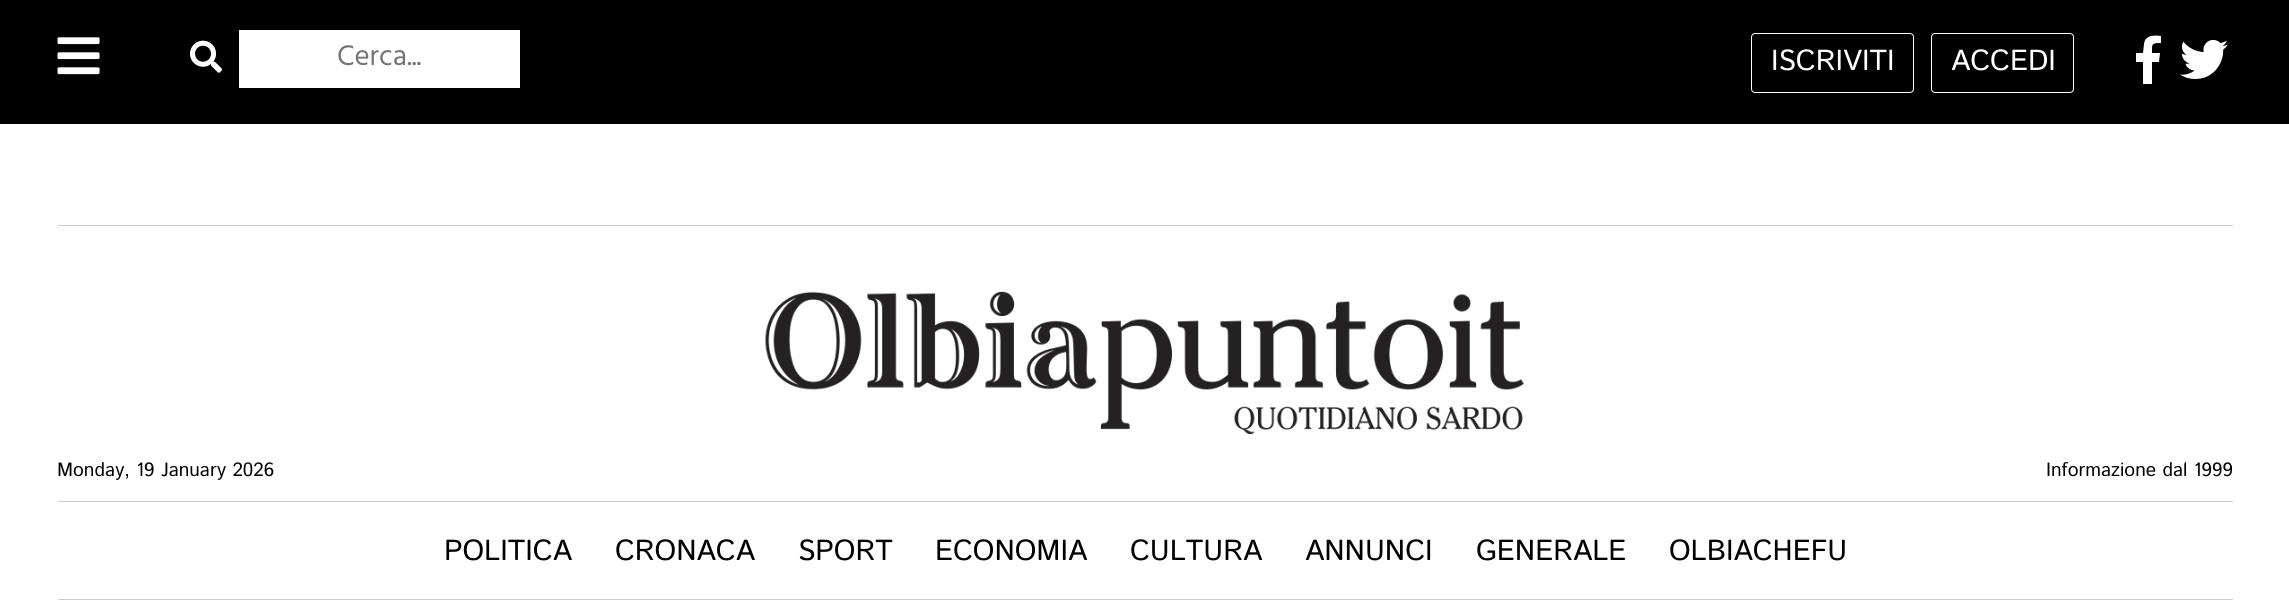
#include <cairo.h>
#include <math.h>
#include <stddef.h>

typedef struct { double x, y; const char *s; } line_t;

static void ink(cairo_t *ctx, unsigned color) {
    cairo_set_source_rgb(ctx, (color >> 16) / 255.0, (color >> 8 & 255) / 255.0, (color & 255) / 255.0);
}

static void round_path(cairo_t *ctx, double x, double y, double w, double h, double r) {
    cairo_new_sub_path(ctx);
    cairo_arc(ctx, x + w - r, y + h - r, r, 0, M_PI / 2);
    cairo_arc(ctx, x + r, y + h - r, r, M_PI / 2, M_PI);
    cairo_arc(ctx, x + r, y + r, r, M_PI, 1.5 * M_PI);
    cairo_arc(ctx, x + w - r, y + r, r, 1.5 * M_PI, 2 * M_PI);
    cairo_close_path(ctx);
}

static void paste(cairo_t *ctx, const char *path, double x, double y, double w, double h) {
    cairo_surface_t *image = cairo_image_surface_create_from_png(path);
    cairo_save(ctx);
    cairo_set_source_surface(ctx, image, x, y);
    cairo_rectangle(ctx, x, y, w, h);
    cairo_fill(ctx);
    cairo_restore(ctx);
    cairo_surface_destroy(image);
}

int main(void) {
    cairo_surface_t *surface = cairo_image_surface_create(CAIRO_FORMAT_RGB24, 2289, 608);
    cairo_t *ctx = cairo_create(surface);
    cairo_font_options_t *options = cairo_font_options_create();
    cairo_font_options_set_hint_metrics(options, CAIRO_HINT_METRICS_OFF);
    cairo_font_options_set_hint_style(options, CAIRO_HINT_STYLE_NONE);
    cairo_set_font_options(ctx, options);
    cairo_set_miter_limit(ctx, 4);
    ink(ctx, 0xFFFFFF);
    cairo_paint(ctx);
    ink(ctx, 0x000000);
    cairo_rectangle(ctx, 0, 0, 2289, 124);
    cairo_fill(ctx);
    paste(ctx, "media/1.png", 57, 37, 43, 38);
    paste(ctx, "media/2.png", 190, 40, 32, 33);
    ink(ctx, 0xFFFFFF);
    cairo_rectangle(ctx, 239, 30, 281, 58);
    cairo_fill(ctx);
    cairo_select_font_face(ctx, "Hind", CAIRO_FONT_SLANT_NORMAL, CAIRO_FONT_WEIGHT_NORMAL);
    cairo_set_font_size(ctx, 29);
    ink(ctx, 0x757575);
    cairo_move_to(ctx, 337, 65);
    cairo_show_text(ctx, "Cerca...");
    round_path(ctx, 1751.5, 33.5, 162, 59, 3.5);
    ink(ctx, 0xFFFFFF);
    cairo_set_line_width(ctx, 1);
    cairo_stroke(ctx);
    cairo_select_font_face(ctx, "Istok Web", CAIRO_FONT_SLANT_NORMAL, CAIRO_FONT_WEIGHT_NORMAL);
    cairo_move_to(ctx, 1771, 70);
    cairo_show_text(ctx, "ISCRIVITI");
    round_path(ctx, 1931.5, 33.5, 142, 59, 3.5);
    cairo_stroke(ctx);
    cairo_move_to(ctx, 1951, 70);
    cairo_show_text(ctx, "ACCEDI");
    cairo_new_path(ctx);
    cairo_move_to(ctx, 2143, 84);
    cairo_line_to(ctx, 2143, 62);
    cairo_line_to(ctx, 2136, 62);
    cairo_line_to(ctx, 2136, 53);
    cairo_line_to(ctx, 2143, 53);
    cairo_line_to(ctx, 2144, 44);
    cairo_curve_to(ctx, 2145, 35, 2154, 35, 2161, 36);
    cairo_line_to(ctx, 2161, 43);
    cairo_curve_to(ctx, 2151, 43, 2152, 44, 2152, 53);
    cairo_line_to(ctx, 2160, 53);
    cairo_line_to(ctx, 2159, 62);
    cairo_line_to(ctx, 2152, 62);
    cairo_line_to(ctx, 2152, 84);
    cairo_close_path(ctx);
    cairo_fill(ctx);
    paste(ctx, "media/3.png", 2180, 39, 48, 40);
    ink(ctx, 0xCCCCCC);
    cairo_rectangle(ctx, 58, 225, 2175, 1);
    cairo_fill(ctx);
    paste(ctx, "media/4.png", 765, 291, 759, 144);
    cairo_set_font_size(ctx, 19.25);
    ink(ctx, 0x000000);
    cairo_move_to(ctx, 57, 476);
    cairo_show_text(ctx, "Monday, 19 January 2026");
    cairo_move_to(ctx, 2046, 476);
    cairo_show_text(ctx, "Informazione dal 1999");
    ink(ctx, 0xCCCCCC);
    cairo_rectangle(ctx, 58, 501, 2175, 1);
    cairo_fill(ctx);
    cairo_rectangle(ctx, 58, 599, 2175, 1);
    cairo_fill(ctx);
    cairo_set_font_size(ctx, 29);
    ink(ctx, 0x000000);
    {
        static const line_t items[] = {
            {444, 560, "POLITICA"},
            {615, 560, "CRONACA"},
            {798, 560, "SPORT"},
            {935, 560, "ECONOMIA"},
            {1130, 560, "CULTURA"},
            {1305, 560, "ANNUNCI"},
            {1476, 560, "GENERALE"},
            {1669, 560, "OLBIACHEFU"},
        };
        for (size_t i = 0; i < sizeof items / sizeof *items; i++) {
            cairo_move_to(ctx, items[i].x, items[i].y);
            cairo_show_text(ctx, items[i].s);
        }
    }
    cairo_surface_write_to_png(surface, "image.png");
    cairo_font_options_destroy(options);
    cairo_destroy(ctx);
    cairo_surface_destroy(surface);
    return 0;
}
